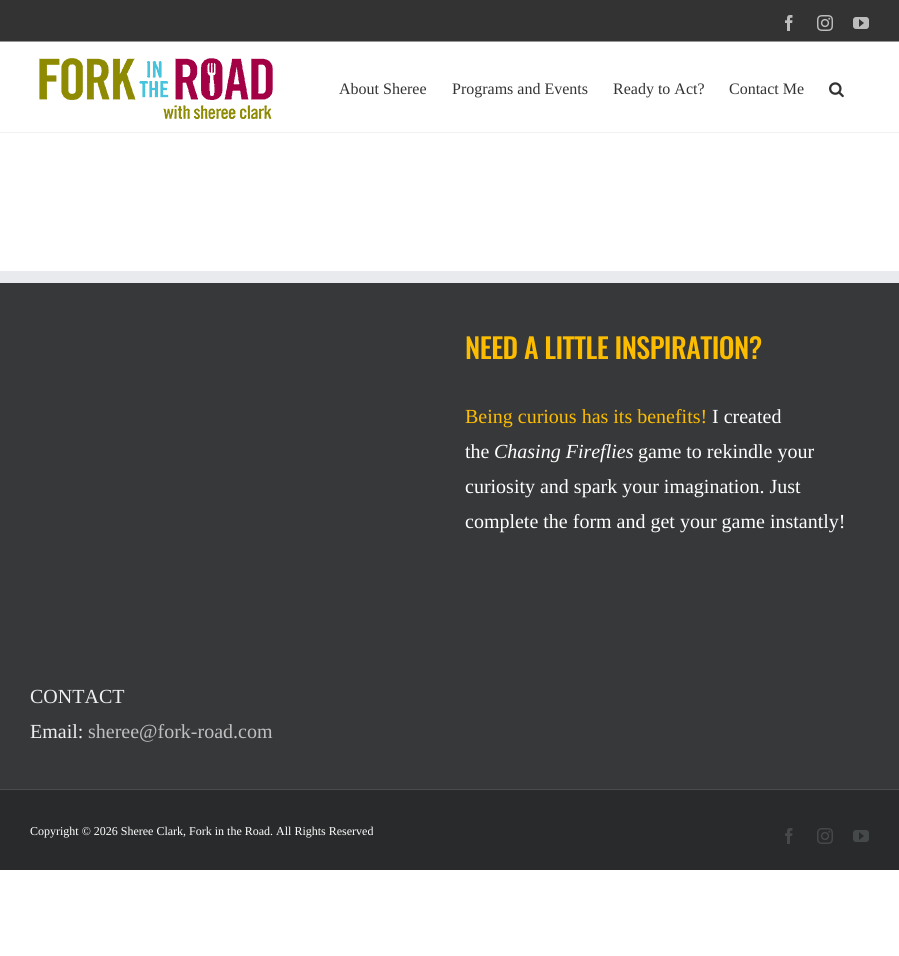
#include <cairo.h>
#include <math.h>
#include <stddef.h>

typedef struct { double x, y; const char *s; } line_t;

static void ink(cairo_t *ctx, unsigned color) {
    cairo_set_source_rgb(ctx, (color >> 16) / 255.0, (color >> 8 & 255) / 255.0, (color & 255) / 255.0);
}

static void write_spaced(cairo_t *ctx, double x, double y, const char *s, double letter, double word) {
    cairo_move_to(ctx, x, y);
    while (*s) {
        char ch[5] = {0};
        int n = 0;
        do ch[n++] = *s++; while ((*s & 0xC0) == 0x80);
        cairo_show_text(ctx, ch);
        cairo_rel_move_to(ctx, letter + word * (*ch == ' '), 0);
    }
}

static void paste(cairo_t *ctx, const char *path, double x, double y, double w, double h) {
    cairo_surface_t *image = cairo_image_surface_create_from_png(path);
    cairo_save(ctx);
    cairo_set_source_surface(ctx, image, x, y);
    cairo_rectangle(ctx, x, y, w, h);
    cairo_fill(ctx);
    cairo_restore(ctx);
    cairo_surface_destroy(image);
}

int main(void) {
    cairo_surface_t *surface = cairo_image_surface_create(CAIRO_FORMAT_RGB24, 899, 956);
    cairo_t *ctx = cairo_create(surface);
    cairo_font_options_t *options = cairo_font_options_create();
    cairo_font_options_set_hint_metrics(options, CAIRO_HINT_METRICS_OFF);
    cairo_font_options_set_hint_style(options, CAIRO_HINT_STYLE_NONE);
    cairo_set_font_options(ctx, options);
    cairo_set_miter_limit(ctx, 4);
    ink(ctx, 0xFFFFFF);
    cairo_paint(ctx);
    ink(ctx, 0x333333);
    cairo_rectangle(ctx, 0, 0, 899, 41);
    cairo_fill(ctx);
    ink(ctx, 0x959595);
    cairo_rectangle(ctx, 0, 41, 899, 1);
    cairo_fill(ctx);
    paste(ctx, "media/1.png", 785, 15, 8, 16);
    paste(ctx, "media/2.png", 817, 15, 16, 16);
    paste(ctx, "media/3.png", 853, 17, 16, 12);
    ink(ctx, 0xF1F1F1);
    cairo_rectangle(ctx, 0, 132, 899, 1);
    cairo_fill(ctx);
    paste(ctx, "media/4.png", 39, 58, 234, 61);
    cairo_select_font_face(ctx, "Liberation Serif", CAIRO_FONT_SLANT_NORMAL, CAIRO_FONT_WEIGHT_NORMAL);
    cairo_set_font_size(ctx, 16);
    ink(ctx, 0x333333);
    {
        static const line_t items[] = {
            {339, 94, "About Sheree"},
            {452, 94, "Programs and Events"},
            {613, 94, "Ready to Act?"},
            {729, 94, "Contact Me"},
        };
        for (size_t i = 0; i < sizeof items / sizeof *items; i++) {
            cairo_move_to(ctx, items[i].x, items[i].y);
            cairo_show_text(ctx, items[i].s);
        }
    }
    paste(ctx, "media/5.png", 829, 82, 15, 16);
    ink(ctx, 0x363839);
    cairo_rectangle(ctx, 0, 283, 899, 506);
    cairo_fill(ctx);
    ink(ctx, 0xE9EAEE);
    cairo_rectangle(ctx, 0, 271, 899, 12);
    cairo_fill(ctx);
    cairo_select_font_face(ctx, "Oswald Medium", CAIRO_FONT_SLANT_NORMAL, CAIRO_FONT_WEIGHT_NORMAL);
    cairo_set_font_size(ctx, 28);
    ink(ctx, 0xFCBD00);
    write_spaced(ctx, 465, 359, "NEED A LITTLE INSPIRATION?", -0.55, 0);
    cairo_select_font_face(ctx, "Liberation Serif", CAIRO_FONT_SLANT_NORMAL, CAIRO_FONT_WEIGHT_NORMAL);
    cairo_set_font_size(ctx, 20);
    cairo_move_to(ctx, 465, 423);
    cairo_show_text(ctx, "Being curious has its benefits!");
    ink(ctx, 0xFFFFFF);
    cairo_move_to(ctx, 712, 423);
    cairo_show_text(ctx, "I created");
    cairo_move_to(ctx, 465, 458);
    cairo_show_text(ctx, "the");
    cairo_select_font_face(ctx, "Liberation Serif", CAIRO_FONT_SLANT_ITALIC, CAIRO_FONT_WEIGHT_NORMAL);
    cairo_move_to(ctx, 494, 458);
    cairo_show_text(ctx, "Chasing Fireflies");
    cairo_select_font_face(ctx, "Liberation Serif", CAIRO_FONT_SLANT_NORMAL, CAIRO_FONT_WEIGHT_NORMAL);
    {
        static const line_t items[] = {
            {638, 458, "game to rekindle your"},
            {465, 493, "curiosity and spark your imagination. Just"},
            {465, 528, "complete the form and get your game instantly!"},
        };
        for (size_t i = 0; i < sizeof items / sizeof *items; i++) {
            cairo_move_to(ctx, items[i].x, items[i].y);
            cairo_show_text(ctx, items[i].s);
        }
    }
    ink(ctx, 0xEFEFEF);
    cairo_move_to(ctx, 30, 703);
    cairo_show_text(ctx, "CONTACT");
    cairo_move_to(ctx, 30, 738);
    cairo_show_text(ctx, "Email:");
    ink(ctx, 0xBFBFBF);
    cairo_move_to(ctx, 88, 738);
    cairo_show_text(ctx, "sheree@fork-road.com");
    ink(ctx, 0x282A2B);
    cairo_rectangle(ctx, 0, 790, 899, 80);
    cairo_fill(ctx);
    ink(ctx, 0x4B4C4D);
    cairo_rectangle(ctx, 0, 789, 899, 1);
    cairo_fill(ctx);
    cairo_set_font_size(ctx, 12);
    ink(ctx, 0xFFFFFF);
    cairo_move_to(ctx, 30, 835);
    cairo_show_text(ctx, "Copyright © 2026 Sheree Clark, Fork in the Road. All Rights Reserved");
    paste(ctx, "media/6.png", 785, 828, 8, 16);
    paste(ctx, "media/7.png", 817, 828, 16, 16);
    paste(ctx, "media/8.png", 853, 830, 16, 12);
    cairo_surface_write_to_png(surface, "image.png");
    cairo_font_options_destroy(options);
    cairo_destroy(ctx);
    cairo_surface_destroy(surface);
    return 0;
}
